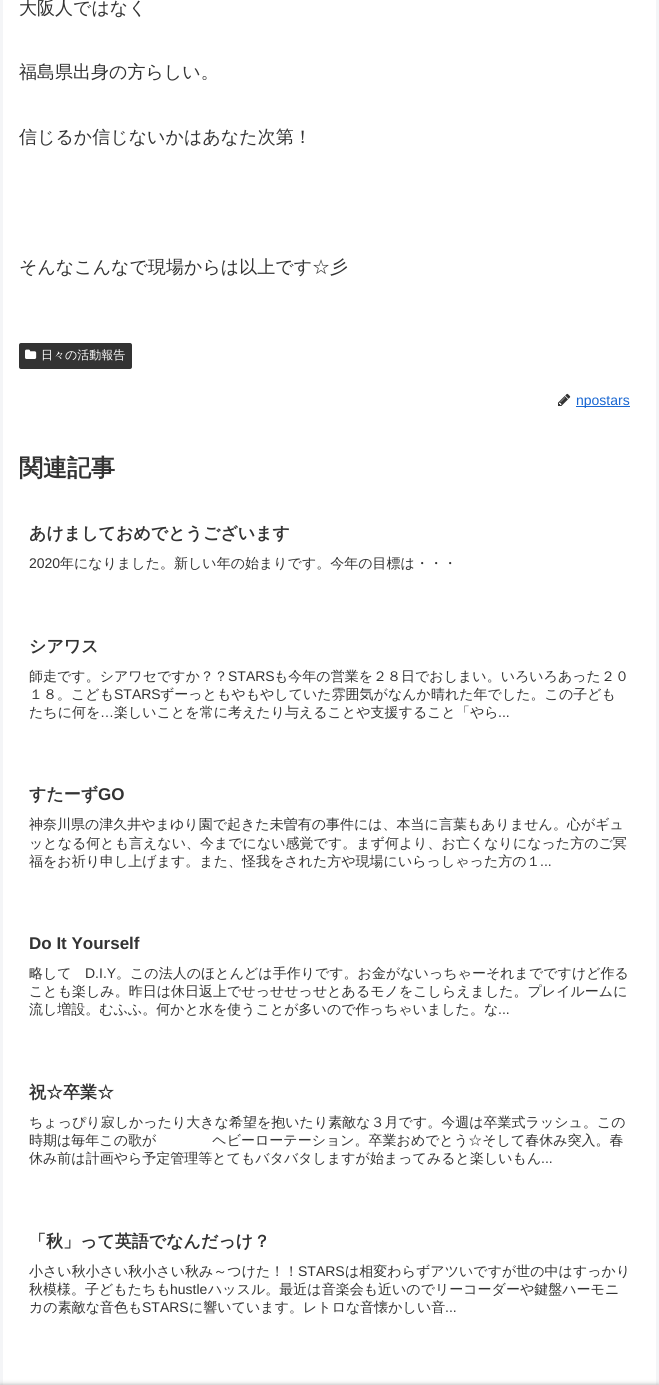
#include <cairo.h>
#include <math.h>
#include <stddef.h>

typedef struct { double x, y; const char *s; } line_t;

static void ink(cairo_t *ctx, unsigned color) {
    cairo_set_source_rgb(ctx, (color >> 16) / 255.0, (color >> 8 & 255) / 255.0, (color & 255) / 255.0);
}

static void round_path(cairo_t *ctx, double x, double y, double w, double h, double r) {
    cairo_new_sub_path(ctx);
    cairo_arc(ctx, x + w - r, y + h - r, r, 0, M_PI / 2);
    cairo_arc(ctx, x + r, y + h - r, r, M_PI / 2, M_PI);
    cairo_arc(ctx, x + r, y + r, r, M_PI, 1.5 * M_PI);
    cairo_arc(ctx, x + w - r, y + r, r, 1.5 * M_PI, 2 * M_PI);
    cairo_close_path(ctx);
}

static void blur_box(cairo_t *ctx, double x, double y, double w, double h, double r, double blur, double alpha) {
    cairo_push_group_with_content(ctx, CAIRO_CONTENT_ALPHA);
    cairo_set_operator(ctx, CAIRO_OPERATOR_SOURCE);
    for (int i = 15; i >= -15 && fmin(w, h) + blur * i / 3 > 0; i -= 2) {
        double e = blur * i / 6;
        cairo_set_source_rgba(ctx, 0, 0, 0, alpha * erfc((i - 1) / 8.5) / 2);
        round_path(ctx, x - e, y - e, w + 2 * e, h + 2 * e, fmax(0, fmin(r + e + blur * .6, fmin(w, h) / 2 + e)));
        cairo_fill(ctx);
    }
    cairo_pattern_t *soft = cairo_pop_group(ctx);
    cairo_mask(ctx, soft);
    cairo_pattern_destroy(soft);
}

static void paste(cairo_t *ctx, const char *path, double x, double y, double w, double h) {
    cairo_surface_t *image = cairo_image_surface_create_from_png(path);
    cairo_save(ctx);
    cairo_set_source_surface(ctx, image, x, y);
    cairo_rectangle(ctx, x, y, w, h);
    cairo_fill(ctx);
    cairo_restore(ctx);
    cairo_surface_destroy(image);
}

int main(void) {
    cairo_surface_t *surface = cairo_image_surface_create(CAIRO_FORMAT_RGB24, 659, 1385);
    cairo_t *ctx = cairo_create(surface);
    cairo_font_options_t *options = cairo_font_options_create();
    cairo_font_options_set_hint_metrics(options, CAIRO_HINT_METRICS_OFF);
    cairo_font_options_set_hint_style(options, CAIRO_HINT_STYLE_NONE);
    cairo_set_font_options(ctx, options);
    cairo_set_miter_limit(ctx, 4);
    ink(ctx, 0xF4F5F7);
    cairo_paint(ctx);
    ink(ctx, 0xFFFFFF);
    cairo_rectangle(ctx, 3, 0, 653, 1385);
    cairo_fill(ctx);
    cairo_select_font_face(ctx, "WenQuanYi Zen Hei Medium", CAIRO_FONT_SLANT_NORMAL, CAIRO_FONT_WEIGHT_NORMAL);
    cairo_set_font_size(ctx, 18);
    ink(ctx, 0x333333);
    {
        static const line_t items[] = {
            {19, 14, "大阪人ではなく"},
            {19, 78, "福島県出身の方らしい。"},
            {19, 143, "信じるか信じないかはあなた次第！"},
            {19, 273, "そんなこんなで現場からは以上です☆彡"},
        };
        for (size_t i = 0; i < sizeof items / sizeof *items; i++) {
            cairo_move_to(ctx, items[i].x, items[i].y);
            cairo_show_text(ctx, items[i].s);
        }
    }
    round_path(ctx, 19, 343, 113, 26, 2);
    cairo_fill(ctx);
    paste(ctx, "media/1.png", 25, 349, 12, 10);
    cairo_set_font_size(ctx, 12);
    ink(ctx, 0xFFFFFF);
    cairo_move_to(ctx, 41, 359);
    cairo_show_text(ctx, "日々の活動報告");
    paste(ctx, "media/2.png", 558, 393, 13, 13);
    ink(ctx, 0x1967D2);
    cairo_rectangle(ctx, 576, 406, 54, 1);
    cairo_fill(ctx);
    cairo_select_font_face(ctx, "Liberation Sans", CAIRO_FONT_SLANT_NORMAL, CAIRO_FONT_WEIGHT_NORMAL);
    cairo_set_font_size(ctx, 14);
    cairo_move_to(ctx, 576, 405);
    cairo_show_text(ctx, "npostars");
    cairo_select_font_face(ctx, "WenQuanYi Zen Hei", CAIRO_FONT_SLANT_NORMAL, CAIRO_FONT_WEIGHT_BOLD);
    cairo_set_font_size(ctx, 24);
    ink(ctx, 0x333333);
    cairo_move_to(ctx, 19, 476);
    cairo_show_text(ctx, "関連記事");
    cairo_set_font_size(ctx, 17);
    cairo_move_to(ctx, 29, 539);
    cairo_show_text(ctx, "あけましておめでとうございます");
    cairo_select_font_face(ctx, "Liberation Sans", CAIRO_FONT_SLANT_NORMAL, CAIRO_FONT_WEIGHT_NORMAL);
    cairo_set_font_size(ctx, 14);
    cairo_move_to(ctx, 29, 568);
    cairo_show_text(ctx, "2020");
    cairo_select_font_face(ctx, "WenQuanYi Zen Hei Medium", CAIRO_FONT_SLANT_NORMAL, CAIRO_FONT_WEIGHT_NORMAL);
    cairo_move_to(ctx, 60, 568);
    cairo_show_text(ctx, "年になりました。新しい年の始まりです。今年の目標は・・・");
    cairo_select_font_face(ctx, "WenQuanYi Zen Hei", CAIRO_FONT_SLANT_NORMAL, CAIRO_FONT_WEIGHT_BOLD);
    cairo_set_font_size(ctx, 17);
    cairo_move_to(ctx, 29, 652);
    cairo_show_text(ctx, "シアワス");
    cairo_select_font_face(ctx, "WenQuanYi Zen Hei Medium", CAIRO_FONT_SLANT_NORMAL, CAIRO_FONT_WEIGHT_NORMAL);
    cairo_set_font_size(ctx, 14);
    cairo_move_to(ctx, 29, 681);
    cairo_show_text(ctx, "師走です。シアワセですか？？");
    cairo_select_font_face(ctx, "Liberation Sans", CAIRO_FONT_SLANT_NORMAL, CAIRO_FONT_WEIGHT_NORMAL);
    cairo_move_to(ctx, 228, 681);
    cairo_show_text(ctx, "STARS");
    cairo_select_font_face(ctx, "WenQuanYi Zen Hei Medium", CAIRO_FONT_SLANT_NORMAL, CAIRO_FONT_WEIGHT_NORMAL);
    cairo_move_to(ctx, 274, 681);
    cairo_show_text(ctx, "も今年の営業を２８日でおしまい。いろいろあった２０");
    cairo_move_to(ctx, 29, 699);
    cairo_show_text(ctx, "１８。こども");
    cairo_select_font_face(ctx, "Liberation Sans", CAIRO_FONT_SLANT_NORMAL, CAIRO_FONT_WEIGHT_NORMAL);
    cairo_move_to(ctx, 114, 699);
    cairo_show_text(ctx, "STARS");
    cairo_select_font_face(ctx, "WenQuanYi Zen Hei Medium", CAIRO_FONT_SLANT_NORMAL, CAIRO_FONT_WEIGHT_NORMAL);
    cairo_move_to(ctx, 160, 699);
    cairo_show_text(ctx, "ずーっともやもやしていた雰囲気がなんか晴れた年でした。この子ども");
    cairo_move_to(ctx, 29, 717);
    cairo_show_text(ctx, "たちに何を");
    cairo_select_font_face(ctx, "Liberation Sans", CAIRO_FONT_SLANT_NORMAL, CAIRO_FONT_WEIGHT_NORMAL);
    cairo_move_to(ctx, 100, 717);
    cairo_show_text(ctx, "…");
    cairo_select_font_face(ctx, "WenQuanYi Zen Hei Medium", CAIRO_FONT_SLANT_NORMAL, CAIRO_FONT_WEIGHT_NORMAL);
    cairo_move_to(ctx, 114, 717);
    cairo_show_text(ctx, "楽しいことを常に考えたり与えることや支援すること「やら");
    cairo_select_font_face(ctx, "Liberation Sans", CAIRO_FONT_SLANT_NORMAL, CAIRO_FONT_WEIGHT_NORMAL);
    cairo_move_to(ctx, 498, 717);
    cairo_show_text(ctx, "...");
    cairo_select_font_face(ctx, "WenQuanYi Zen Hei", CAIRO_FONT_SLANT_NORMAL, CAIRO_FONT_WEIGHT_BOLD);
    cairo_set_font_size(ctx, 17);
    cairo_move_to(ctx, 29, 800);
    cairo_show_text(ctx, "すたーず");
    cairo_select_font_face(ctx, "Liberation Sans", CAIRO_FONT_SLANT_NORMAL, CAIRO_FONT_WEIGHT_BOLD);
    cairo_move_to(ctx, 98, 800);
    cairo_show_text(ctx, "GO");
    cairo_select_font_face(ctx, "WenQuanYi Zen Hei Medium", CAIRO_FONT_SLANT_NORMAL, CAIRO_FONT_WEIGHT_NORMAL);
    cairo_set_font_size(ctx, 14);
    {
        static const line_t items[] = {
            {29, 829, "神奈川県の津久井やまゆり園で起きた未曽有の事件には、本当に言葉もありません。心がギュ"},
            {29, 848, "ッとなる何とも言えない、今までにない感覚です。まず何より、お亡くなりになった方のご冥"},
            {29, 866, "福をお祈り申し上げます。また、怪我をされた方や現場にいらっしゃった方の１"},
        };
        for (size_t i = 0; i < sizeof items / sizeof *items; i++) {
            cairo_move_to(ctx, items[i].x, items[i].y);
            cairo_show_text(ctx, items[i].s);
        }
    }
    cairo_select_font_face(ctx, "Liberation Sans", CAIRO_FONT_SLANT_NORMAL, CAIRO_FONT_WEIGHT_NORMAL);
    cairo_move_to(ctx, 540, 866);
    cairo_show_text(ctx, "...");
    cairo_select_font_face(ctx, "Liberation Sans", CAIRO_FONT_SLANT_NORMAL, CAIRO_FONT_WEIGHT_BOLD);
    cairo_set_font_size(ctx, 17);
    cairo_move_to(ctx, 29, 949);
    cairo_show_text(ctx, "Do It Yourself");
    cairo_select_font_face(ctx, "WenQuanYi Zen Hei Medium", CAIRO_FONT_SLANT_NORMAL, CAIRO_FONT_WEIGHT_NORMAL);
    cairo_set_font_size(ctx, 14);
    cairo_move_to(ctx, 29, 978);
    cairo_show_text(ctx, "略して");
    cairo_select_font_face(ctx, "Liberation Sans", CAIRO_FONT_SLANT_NORMAL, CAIRO_FONT_WEIGHT_NORMAL);
    cairo_move_to(ctx, 85, 978);
    cairo_show_text(ctx, "D.I.Y");
    cairo_select_font_face(ctx, "WenQuanYi Zen Hei Medium", CAIRO_FONT_SLANT_NORMAL, CAIRO_FONT_WEIGHT_NORMAL);
    {
        static const line_t items[] = {
            {116, 978, "。この法人のほとんどは手作りです。お金がないっちゃーそれまでですけど作る"},
            {29, 996, "ことも楽しみ。昨日は休日返上でせっせせっせとあるモノをこしらえました。プレイルームに"},
            {29, 1014, "流し増設。むふふ。何かと水を使うことが多いので作っちゃいました。な"},
        };
        for (size_t i = 0; i < sizeof items / sizeof *items; i++) {
            cairo_move_to(ctx, items[i].x, items[i].y);
            cairo_show_text(ctx, items[i].s);
        }
    }
    cairo_select_font_face(ctx, "Liberation Sans", CAIRO_FONT_SLANT_NORMAL, CAIRO_FONT_WEIGHT_NORMAL);
    cairo_move_to(ctx, 498, 1014);
    cairo_show_text(ctx, "...");
    cairo_select_font_face(ctx, "WenQuanYi Zen Hei", CAIRO_FONT_SLANT_NORMAL, CAIRO_FONT_WEIGHT_BOLD);
    cairo_set_font_size(ctx, 17);
    cairo_move_to(ctx, 29, 1098);
    cairo_show_text(ctx, "祝☆卒業☆");
    cairo_select_font_face(ctx, "WenQuanYi Zen Hei Medium", CAIRO_FONT_SLANT_NORMAL, CAIRO_FONT_WEIGHT_NORMAL);
    cairo_set_font_size(ctx, 14);
    {
        static const line_t items[] = {
            {29, 1127, "ちょっぴり寂しかったり大きな希望を抱いたり素敵な３月です。今週は卒業式ラッシュ。この"},
            {29, 1145, "時期は毎年この歌が　　　　ヘビーローテーション。卒業おめでとう☆そして春休み突入。春"},
            {29, 1163, "休み前は計画やら予定管理等とてもバタバタしますが始まってみると楽しいもん"},
        };
        for (size_t i = 0; i < sizeof items / sizeof *items; i++) {
            cairo_move_to(ctx, items[i].x, items[i].y);
            cairo_show_text(ctx, items[i].s);
        }
    }
    cairo_select_font_face(ctx, "Liberation Sans", CAIRO_FONT_SLANT_NORMAL, CAIRO_FONT_WEIGHT_NORMAL);
    cairo_move_to(ctx, 541, 1163);
    cairo_show_text(ctx, "...");
    cairo_select_font_face(ctx, "WenQuanYi Zen Hei", CAIRO_FONT_SLANT_NORMAL, CAIRO_FONT_WEIGHT_BOLD);
    cairo_set_font_size(ctx, 17);
    cairo_move_to(ctx, 29, 1247);
    cairo_show_text(ctx, "「秋」って英語でなんだっけ？");
    cairo_select_font_face(ctx, "WenQuanYi Zen Hei Medium", CAIRO_FONT_SLANT_NORMAL, CAIRO_FONT_WEIGHT_NORMAL);
    cairo_set_font_size(ctx, 14);
    cairo_move_to(ctx, 29, 1276);
    cairo_show_text(ctx, "小さい秋小さい秋小さい秋み～つけた！！");
    cairo_select_font_face(ctx, "Liberation Sans", CAIRO_FONT_SLANT_NORMAL, CAIRO_FONT_WEIGHT_NORMAL);
    cairo_move_to(ctx, 298, 1276);
    cairo_show_text(ctx, "STARS");
    cairo_select_font_face(ctx, "WenQuanYi Zen Hei Medium", CAIRO_FONT_SLANT_NORMAL, CAIRO_FONT_WEIGHT_NORMAL);
    cairo_move_to(ctx, 345, 1276);
    cairo_show_text(ctx, "は相変わらずアツいですが世の中はすっかり");
    cairo_move_to(ctx, 29, 1294);
    cairo_show_text(ctx, "秋模様。子どもたちも");
    cairo_select_font_face(ctx, "Liberation Sans", CAIRO_FONT_SLANT_NORMAL, CAIRO_FONT_WEIGHT_NORMAL);
    cairo_move_to(ctx, 170, 1294);
    cairo_show_text(ctx, "hustle");
    cairo_select_font_face(ctx, "WenQuanYi Zen Hei Medium", CAIRO_FONT_SLANT_NORMAL, CAIRO_FONT_WEIGHT_NORMAL);
    cairo_move_to(ctx, 208, 1294);
    cairo_show_text(ctx, "ハッスル。最近は音楽会も近いのでリーコーダーや鍵盤ハーモニ");
    cairo_move_to(ctx, 29, 1312);
    cairo_show_text(ctx, "カの素敵な音色も");
    cairo_select_font_face(ctx, "Liberation Sans", CAIRO_FONT_SLANT_NORMAL, CAIRO_FONT_WEIGHT_NORMAL);
    cairo_move_to(ctx, 142, 1312);
    cairo_show_text(ctx, "STARS");
    cairo_select_font_face(ctx, "WenQuanYi Zen Hei Medium", CAIRO_FONT_SLANT_NORMAL, CAIRO_FONT_WEIGHT_NORMAL);
    cairo_move_to(ctx, 189, 1312);
    cairo_show_text(ctx, "に響いています。レトロな音懐かしい音");
    cairo_select_font_face(ctx, "Liberation Sans", CAIRO_FONT_SLANT_NORMAL, CAIRO_FONT_WEIGHT_NORMAL);
    cairo_move_to(ctx, 445, 1312);
    cairo_show_text(ctx, "...");
    ink(ctx, 0xA9A9A9);
    blur_box(ctx, 0, 1385, 659, 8, 0, 2.5, 1);
    cairo_surface_write_to_png(surface, "image.png");
    cairo_font_options_destroy(options);
    cairo_destroy(ctx);
    cairo_surface_destroy(surface);
    return 0;
}
